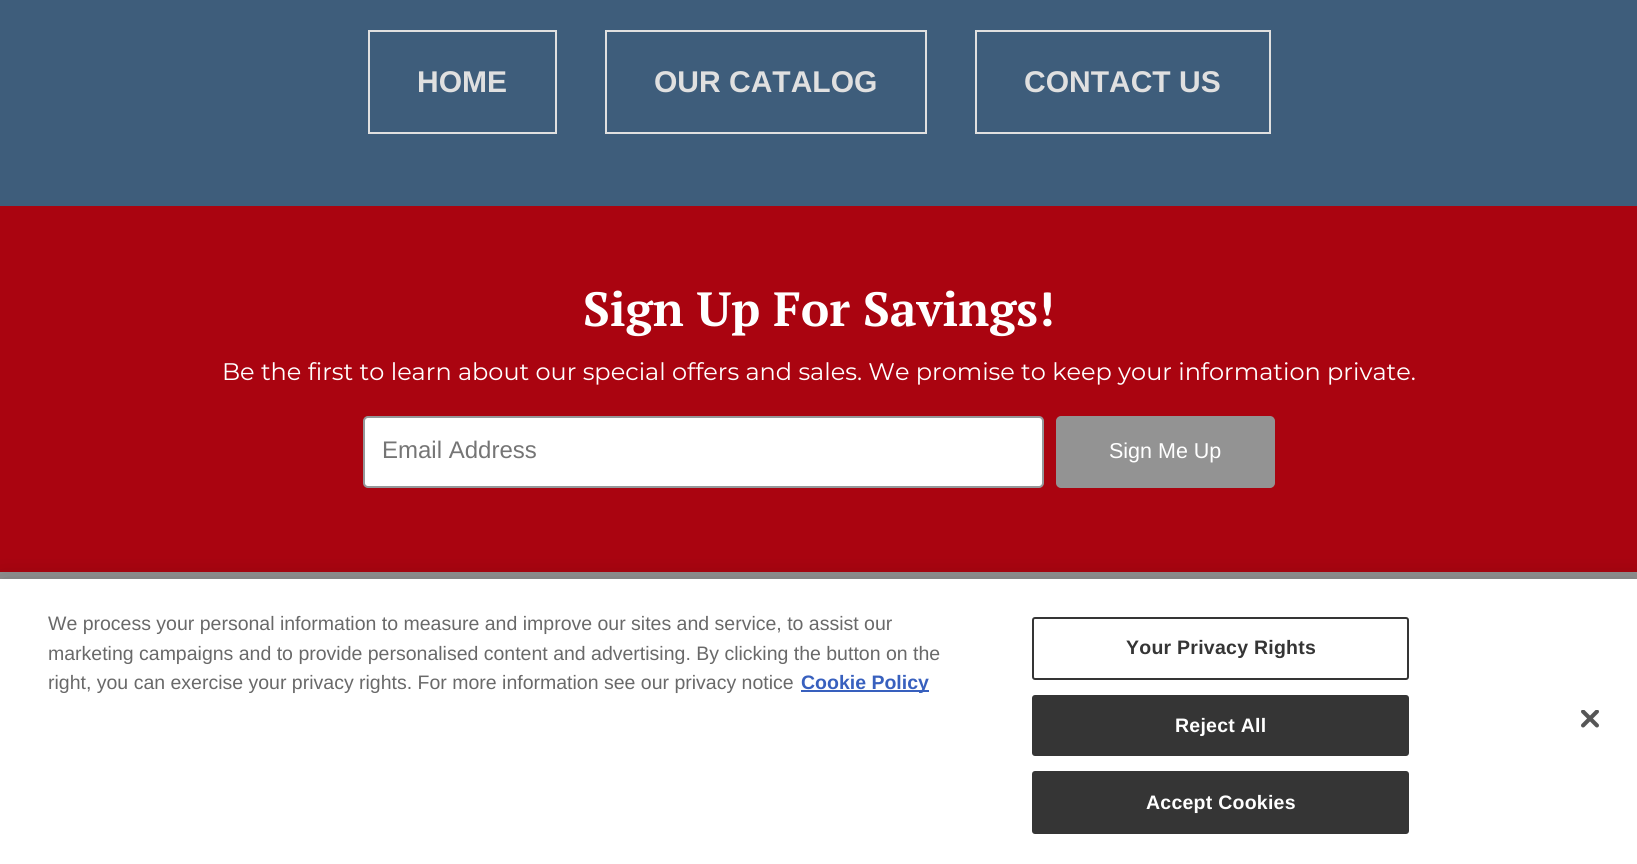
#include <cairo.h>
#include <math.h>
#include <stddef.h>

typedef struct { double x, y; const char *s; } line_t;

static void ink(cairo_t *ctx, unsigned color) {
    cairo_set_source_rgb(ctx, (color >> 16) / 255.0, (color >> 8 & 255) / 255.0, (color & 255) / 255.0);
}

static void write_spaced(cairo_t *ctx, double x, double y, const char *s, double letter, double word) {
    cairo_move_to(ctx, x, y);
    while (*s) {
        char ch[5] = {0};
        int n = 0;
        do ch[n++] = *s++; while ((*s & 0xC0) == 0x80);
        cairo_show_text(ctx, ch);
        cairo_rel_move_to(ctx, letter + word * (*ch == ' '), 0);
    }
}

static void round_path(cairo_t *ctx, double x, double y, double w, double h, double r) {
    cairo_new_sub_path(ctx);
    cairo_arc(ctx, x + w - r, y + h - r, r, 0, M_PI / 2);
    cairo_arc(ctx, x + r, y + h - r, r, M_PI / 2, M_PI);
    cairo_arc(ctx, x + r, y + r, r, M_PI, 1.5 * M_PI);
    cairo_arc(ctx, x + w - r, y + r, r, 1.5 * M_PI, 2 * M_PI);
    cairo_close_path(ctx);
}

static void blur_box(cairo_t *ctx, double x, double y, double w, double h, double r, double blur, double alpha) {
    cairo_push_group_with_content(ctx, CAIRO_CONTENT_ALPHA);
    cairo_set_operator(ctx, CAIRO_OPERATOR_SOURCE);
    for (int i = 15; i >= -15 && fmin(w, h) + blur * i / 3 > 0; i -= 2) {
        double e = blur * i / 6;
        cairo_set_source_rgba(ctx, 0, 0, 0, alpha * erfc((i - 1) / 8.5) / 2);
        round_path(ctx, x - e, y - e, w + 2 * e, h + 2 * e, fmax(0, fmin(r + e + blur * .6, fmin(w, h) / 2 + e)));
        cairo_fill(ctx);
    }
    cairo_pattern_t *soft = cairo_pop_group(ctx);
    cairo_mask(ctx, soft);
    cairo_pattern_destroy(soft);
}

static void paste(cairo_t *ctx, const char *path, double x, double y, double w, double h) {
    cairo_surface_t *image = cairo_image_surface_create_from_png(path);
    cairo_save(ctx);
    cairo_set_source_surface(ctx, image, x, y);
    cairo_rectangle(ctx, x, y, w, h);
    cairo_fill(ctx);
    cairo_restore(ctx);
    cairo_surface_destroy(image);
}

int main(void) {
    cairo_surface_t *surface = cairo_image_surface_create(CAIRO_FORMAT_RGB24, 1637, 864);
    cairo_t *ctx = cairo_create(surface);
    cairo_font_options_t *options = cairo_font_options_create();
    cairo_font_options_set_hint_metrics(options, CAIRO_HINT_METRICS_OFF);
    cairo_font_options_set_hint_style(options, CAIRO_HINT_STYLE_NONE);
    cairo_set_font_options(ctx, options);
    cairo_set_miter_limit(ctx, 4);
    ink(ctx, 0x3E5D7B);
    cairo_paint(ctx);
    cairo_rectangle(ctx, 369, 31, 187, 102);
    ink(ctx, 0xE0E0E0);
    cairo_stroke(ctx);
    cairo_select_font_face(ctx, "Liberation Sans", CAIRO_FONT_SLANT_NORMAL, CAIRO_FONT_WEIGHT_BOLD);
    cairo_set_font_size(ctx, 30);
    cairo_move_to(ctx, 417, 92);
    cairo_show_text(ctx, "HOME");
    cairo_rectangle(ctx, 606, 31, 320, 102);
    cairo_stroke(ctx);
    cairo_move_to(ctx, 654, 92);
    cairo_show_text(ctx, "OUR CATALOG");
    cairo_rectangle(ctx, 976, 31, 294, 102);
    cairo_stroke(ctx);
    cairo_move_to(ctx, 1024, 92);
    cairo_show_text(ctx, "CONTACT US");
    ink(ctx, 0xAA0410);
    cairo_rectangle(ctx, 0, 206, 1637, 366);
    cairo_fill(ctx);
    cairo_select_font_face(ctx, "PT Serif", CAIRO_FONT_SLANT_NORMAL, CAIRO_FONT_WEIGHT_BOLD);
    cairo_set_font_size(ctx, 48);
    ink(ctx, 0xFFFFFF);
    cairo_move_to(ctx, 583, 326);
    cairo_show_text(ctx, "Sign Up For Savings!");
    cairo_select_font_face(ctx, "Montserrat", CAIRO_FONT_SLANT_NORMAL, CAIRO_FONT_WEIGHT_NORMAL);
    cairo_set_font_size(ctx, 24);
    cairo_move_to(ctx, 222, 380);
    cairo_show_text(ctx, "Be the first to learn about our special offers and sales. We promise to keep your information private.");
    round_path(ctx, 364, 417, 679, 70, 4);
    cairo_fill_preserve(ctx);
    ink(ctx, 0x95989A);
    cairo_stroke(ctx);
    cairo_select_font_face(ctx, "Liberation Sans", CAIRO_FONT_SLANT_NORMAL, CAIRO_FONT_WEIGHT_NORMAL);
    ink(ctx, 0x757575);
    cairo_move_to(ctx, 382, 458);
    cairo_show_text(ctx, "Email Address");
    ink(ctx, 0x939393);
    round_path(ctx, 1057, 417, 217, 70, 4);
    cairo_fill_preserve(ctx);
    cairo_stroke(ctx);
    cairo_set_font_size(ctx, 21.5);
    ink(ctx, 0xFFFFFF);
    cairo_move_to(ctx, 1109, 458);
    cairo_show_text(ctx, "Sign Me Up");
    ink(ctx, 0x939393);
    cairo_rectangle(ctx, 0, 572, 1637, 7);
    cairo_fill(ctx);
    ink(ctx, 0x000000);
    blur_box(ctx, 0, 579, 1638, 285, 0, 13.5, 0.2);
    ink(ctx, 0xFFFFFF);
    cairo_rectangle(ctx, 0, 579, 1637, 285);
    cairo_fill(ctx);
    cairo_set_font_size(ctx, 19.5);
    ink(ctx, 0x696969);
    {
        static const line_t items[] = {
            {48, 630, "We process your personal information to measure and improve our sites and service, to assist our"},
            {48, 660, "marketing campaigns and to provide personalised content and advertising. By clicking the button on the"},
            {48, 689, "right, you can exercise your privacy rights. For more information see our privacy notice"},
        };
        for (size_t i = 0; i < sizeof items / sizeof *items; i++) {
            cairo_move_to(ctx, items[i].x, items[i].y);
            cairo_show_text(ctx, items[i].s);
        }
    }
    ink(ctx, 0x3860BE);
    cairo_rectangle(ctx, 801, 690, 128, 2);
    cairo_fill(ctx);
    cairo_select_font_face(ctx, "Liberation Sans", CAIRO_FONT_SLANT_NORMAL, CAIRO_FONT_WEIGHT_BOLD);
    cairo_move_to(ctx, 801, 689);
    cairo_show_text(ctx, "Cookie Policy");
    round_path(ctx, 1033, 618, 375, 61, 2);
    ink(ctx, 0x353535);
    cairo_stroke(ctx);
    write_spaced(ctx, 1126, 654, "Your Privacy Rights", 0.25, 0);
    round_path(ctx, 1033, 696, 375, 59, 2);
    cairo_fill_preserve(ctx);
    cairo_stroke(ctx);
    ink(ctx, 0xFFFFFF);
    write_spaced(ctx, 1175, 732, "Reject All", 0.25, 0);
    ink(ctx, 0x353535);
    round_path(ctx, 1033, 772, 375, 61, 2);
    cairo_fill_preserve(ctx);
    cairo_stroke(ctx);
    ink(ctx, 0xFFFFFF);
    write_spaced(ctx, 1146, 809, "Accept Cookies", 0.25, 0);
    paste(ctx, "media/1.png", 1581, 710, 18, 18);
    cairo_surface_write_to_png(surface, "image.png");
    cairo_font_options_destroy(options);
    cairo_destroy(ctx);
    cairo_surface_destroy(surface);
    return 0;
}
